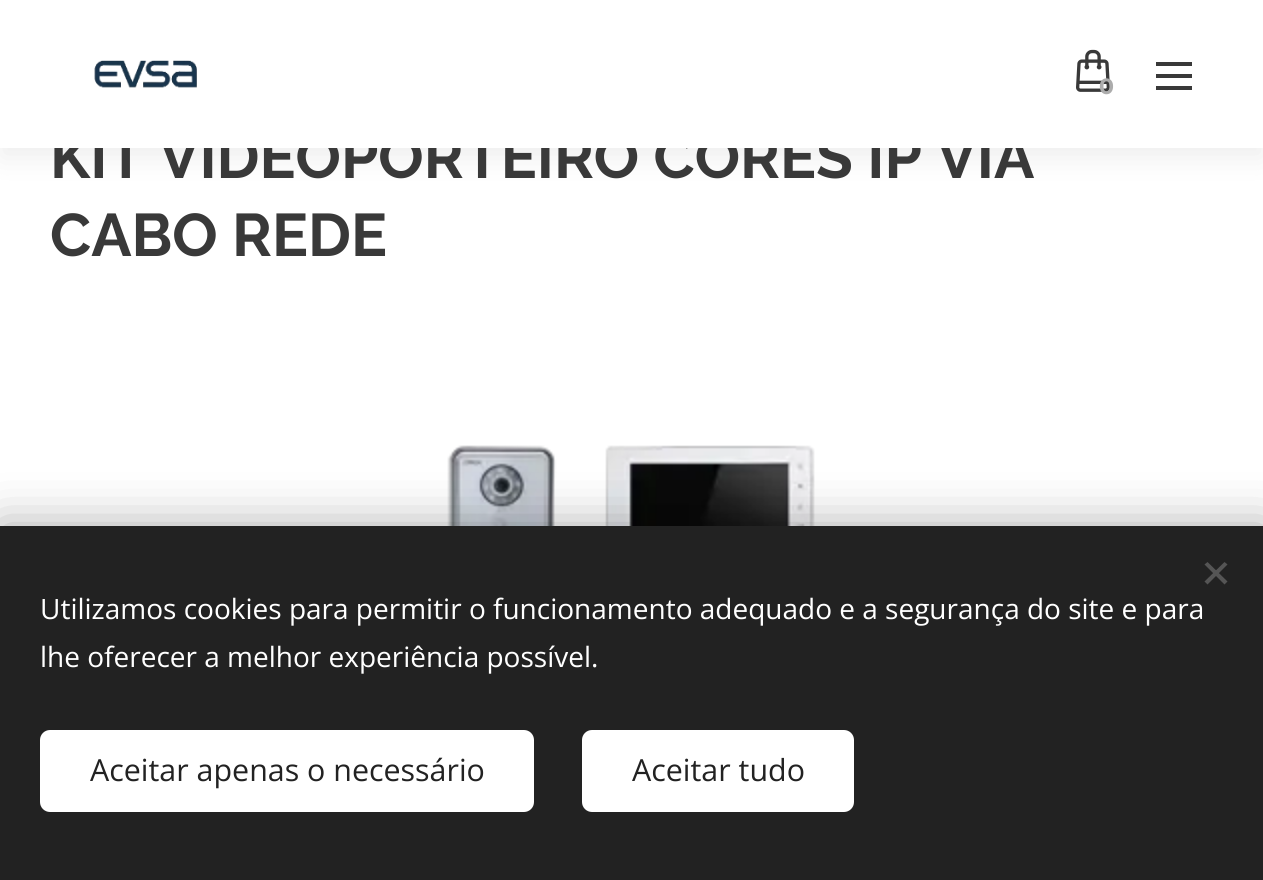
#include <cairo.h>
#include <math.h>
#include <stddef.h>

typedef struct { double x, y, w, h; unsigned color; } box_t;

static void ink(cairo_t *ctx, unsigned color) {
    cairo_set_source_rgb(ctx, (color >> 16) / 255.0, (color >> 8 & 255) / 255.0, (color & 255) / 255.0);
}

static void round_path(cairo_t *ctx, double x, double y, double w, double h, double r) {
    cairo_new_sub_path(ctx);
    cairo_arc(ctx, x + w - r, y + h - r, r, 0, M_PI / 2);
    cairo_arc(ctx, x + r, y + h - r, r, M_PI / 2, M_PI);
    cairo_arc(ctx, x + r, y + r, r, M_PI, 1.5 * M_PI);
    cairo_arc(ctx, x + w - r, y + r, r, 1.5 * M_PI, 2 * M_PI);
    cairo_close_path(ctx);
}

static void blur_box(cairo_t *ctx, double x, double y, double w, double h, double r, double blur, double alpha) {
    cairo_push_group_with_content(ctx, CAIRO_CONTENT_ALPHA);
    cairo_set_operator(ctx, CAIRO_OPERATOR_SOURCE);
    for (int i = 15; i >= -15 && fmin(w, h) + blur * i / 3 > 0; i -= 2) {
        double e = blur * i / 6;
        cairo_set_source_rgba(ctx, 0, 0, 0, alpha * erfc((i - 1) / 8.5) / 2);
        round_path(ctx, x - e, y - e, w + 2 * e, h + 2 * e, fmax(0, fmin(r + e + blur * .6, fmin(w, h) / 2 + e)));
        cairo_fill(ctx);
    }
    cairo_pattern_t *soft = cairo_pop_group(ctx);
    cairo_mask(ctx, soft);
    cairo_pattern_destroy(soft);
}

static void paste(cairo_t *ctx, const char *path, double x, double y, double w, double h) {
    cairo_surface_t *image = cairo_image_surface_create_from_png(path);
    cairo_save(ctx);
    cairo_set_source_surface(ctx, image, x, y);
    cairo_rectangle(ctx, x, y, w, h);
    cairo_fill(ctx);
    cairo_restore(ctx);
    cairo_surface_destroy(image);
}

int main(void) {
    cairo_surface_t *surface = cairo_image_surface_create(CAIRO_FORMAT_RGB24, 1263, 880);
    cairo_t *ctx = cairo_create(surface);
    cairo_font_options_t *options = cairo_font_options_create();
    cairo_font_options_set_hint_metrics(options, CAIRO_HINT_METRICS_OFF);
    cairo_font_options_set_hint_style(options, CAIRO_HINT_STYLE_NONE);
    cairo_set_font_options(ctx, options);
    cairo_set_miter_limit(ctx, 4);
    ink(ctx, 0xFFFFFF);
    cairo_paint(ctx);
    ink(ctx, 0x000000);
    blur_box(ctx, 0, 10, 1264, 148, 0, 15, 0.07);
    cairo_select_font_face(ctx, "Raleway", CAIRO_FONT_SLANT_NORMAL, CAIRO_FONT_WEIGHT_BOLD);
    cairo_set_font_size(ctx, 60);
    ink(ctx, 0x393939);
    cairo_move_to(ctx, 50, 178);
    cairo_show_text(ctx, "KIT VIDEOPORTEIRO CORES IP VIA");
    ink(ctx, 0xFFFFFF);
    cairo_rectangle(ctx, 0, 0, 1263, 148);
    cairo_fill(ctx);
    paste(ctx, "media/1.png", 94, 60, 103, 28);
    paste(ctx, "media/2.png", 1076, 49, 34, 43);
    cairo_select_font_face(ctx, "Montserrat", CAIRO_FONT_SLANT_NORMAL, CAIRO_FONT_WEIGHT_BOLD);
    cairo_set_font_size(ctx, 22);
    ink(ctx, 0xACACAC);
    cairo_move_to(ctx, 1099, 94);
    cairo_show_text(ctx, "0");
    {
        static const box_t items[] = {
            {1156, 74, 36, 4, 0x393939},
            {1156, 62, 36, 4, 0x393939},
            {1156, 86, 36, 4, 0x393939},
        };
        for (size_t i = 0; i < sizeof items / sizeof *items; i++) {
            ink(ctx, items[i].color);
            cairo_rectangle(ctx, items[i].x, items[i].y, items[i].w, items[i].h);
            cairo_fill(ctx);
        }
    }
    cairo_select_font_face(ctx, "Raleway", CAIRO_FONT_SLANT_NORMAL, CAIRO_FONT_WEIGHT_BOLD);
    cairo_set_font_size(ctx, 60);
    cairo_move_to(ctx, 50, 256);
    cairo_show_text(ctx, "CABO REDE");
    paste(ctx, "media/3.png", 447, 445, 368, 81);
    ink(ctx, 0x000000);
    blur_box(ctx, 0, 526, 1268, 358, 0, 25, 0.33);
    ink(ctx, 0x222222);
    cairo_rectangle(ctx, 0, 526, 1263, 354);
    cairo_fill(ctx);
    ink(ctx, 0x555555);
    cairo_new_path(ctx);
    cairo_move_to(ctx, 1204.5, 581.5);
    cairo_line_to(ctx, 1224.5, 562);
    cairo_line_to(ctx, 1227.5, 564.5);
    cairo_line_to(ctx, 1207.5, 584.5);
    cairo_close_path(ctx);
    cairo_fill(ctx);
    cairo_new_path(ctx);
    cairo_move_to(ctx, 1207.5, 562);
    cairo_line_to(ctx, 1227.5, 581.5);
    cairo_line_to(ctx, 1224.5, 584.5);
    cairo_line_to(ctx, 1204.5, 564.5);
    cairo_close_path(ctx);
    cairo_fill(ctx);
    cairo_select_font_face(ctx, "Open Sans", CAIRO_FONT_SLANT_NORMAL, CAIRO_FONT_WEIGHT_NORMAL);
    cairo_set_font_size(ctx, 28);
    ink(ctx, 0xFFFFFF);
    cairo_move_to(ctx, 40, 619);
    cairo_show_text(ctx, "Utilizamos cookies para permitir o funcionamento adequado e a segurança do site e para");
    cairo_move_to(ctx, 40, 667);
    cairo_show_text(ctx, "lhe oferecer a melhor experiência possível.");
    round_path(ctx, 40, 730, 494, 82, 10);
    cairo_fill(ctx);
    cairo_set_font_size(ctx, 30.4);
    ink(ctx, 0x222222);
    cairo_move_to(ctx, 90, 781);
    cairo_show_text(ctx, "Aceitar apenas o necessário");
    ink(ctx, 0xFFFFFF);
    round_path(ctx, 582, 730, 272, 82, 10);
    cairo_fill(ctx);
    ink(ctx, 0x222222);
    cairo_move_to(ctx, 632, 781);
    cairo_show_text(ctx, "Aceitar tudo");
    cairo_surface_write_to_png(surface, "image.png");
    cairo_font_options_destroy(options);
    cairo_destroy(ctx);
    cairo_surface_destroy(surface);
    return 0;
}
